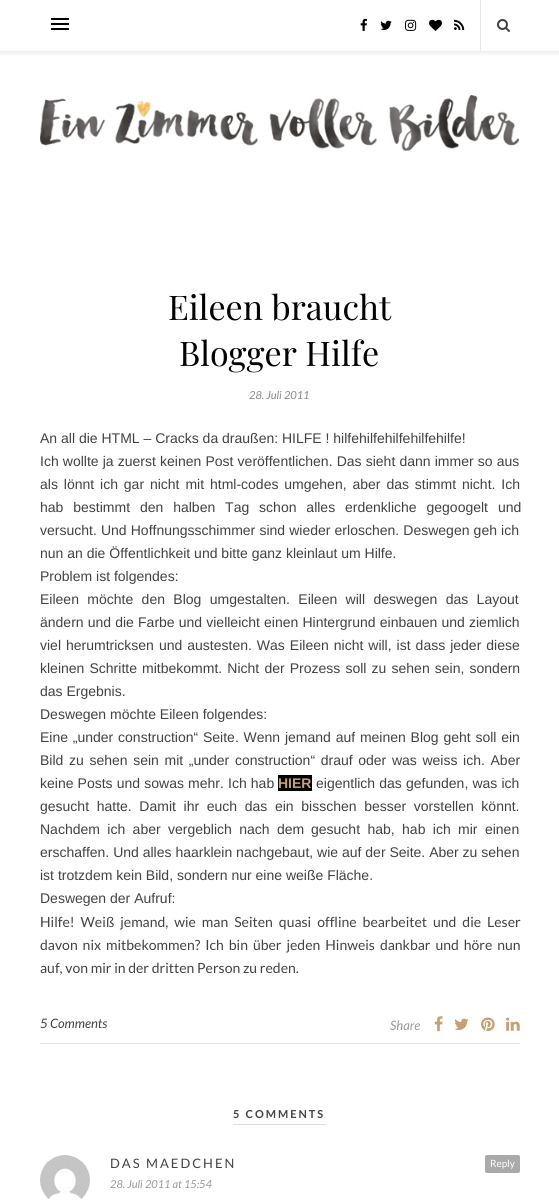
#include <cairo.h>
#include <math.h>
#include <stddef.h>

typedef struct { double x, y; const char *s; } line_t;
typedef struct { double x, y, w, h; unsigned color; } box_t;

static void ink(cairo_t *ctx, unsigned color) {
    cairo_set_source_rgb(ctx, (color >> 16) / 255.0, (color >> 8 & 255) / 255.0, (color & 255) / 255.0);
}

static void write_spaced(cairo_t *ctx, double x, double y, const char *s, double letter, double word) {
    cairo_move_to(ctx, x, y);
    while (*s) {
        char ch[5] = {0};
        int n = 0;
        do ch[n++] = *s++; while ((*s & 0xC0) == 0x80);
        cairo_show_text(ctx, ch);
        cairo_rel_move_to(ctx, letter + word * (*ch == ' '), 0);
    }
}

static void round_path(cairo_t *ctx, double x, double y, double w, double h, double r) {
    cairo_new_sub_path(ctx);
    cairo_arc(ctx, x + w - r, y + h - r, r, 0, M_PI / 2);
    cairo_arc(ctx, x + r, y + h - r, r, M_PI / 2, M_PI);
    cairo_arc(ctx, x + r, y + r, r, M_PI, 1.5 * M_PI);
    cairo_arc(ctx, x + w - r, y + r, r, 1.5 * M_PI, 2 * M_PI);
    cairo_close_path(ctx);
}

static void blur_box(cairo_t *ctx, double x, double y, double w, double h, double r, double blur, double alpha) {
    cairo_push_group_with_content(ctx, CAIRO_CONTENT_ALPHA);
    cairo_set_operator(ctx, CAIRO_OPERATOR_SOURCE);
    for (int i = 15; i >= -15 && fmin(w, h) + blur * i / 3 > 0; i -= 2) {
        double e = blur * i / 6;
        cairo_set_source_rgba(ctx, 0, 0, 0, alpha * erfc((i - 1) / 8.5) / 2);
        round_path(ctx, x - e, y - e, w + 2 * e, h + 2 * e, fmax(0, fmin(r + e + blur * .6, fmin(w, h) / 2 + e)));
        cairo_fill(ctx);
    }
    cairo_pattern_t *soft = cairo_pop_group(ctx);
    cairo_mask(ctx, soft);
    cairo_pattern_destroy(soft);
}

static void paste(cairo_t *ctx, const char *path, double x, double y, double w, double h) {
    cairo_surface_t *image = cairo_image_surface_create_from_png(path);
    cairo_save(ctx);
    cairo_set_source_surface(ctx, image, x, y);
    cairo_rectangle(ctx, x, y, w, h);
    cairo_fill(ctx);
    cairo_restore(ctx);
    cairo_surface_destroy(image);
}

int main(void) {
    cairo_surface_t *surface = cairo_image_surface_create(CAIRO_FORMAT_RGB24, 559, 1200);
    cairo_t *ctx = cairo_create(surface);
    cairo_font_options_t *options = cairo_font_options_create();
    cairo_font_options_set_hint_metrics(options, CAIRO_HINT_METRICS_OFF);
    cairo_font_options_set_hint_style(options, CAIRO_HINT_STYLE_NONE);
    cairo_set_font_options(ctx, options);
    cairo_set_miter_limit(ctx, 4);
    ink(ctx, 0xFFFFFF);
    cairo_paint(ctx);
    cairo_save(ctx);
    cairo_rectangle(ctx, 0, 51, 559, 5);
    cairo_clip(ctx);
    ink(ctx, 0xBEBEBE);
    blur_box(ctx, 0, 1, 559, 51, 0, 2.5, 0.46);
    cairo_restore(ctx);
    {
        static const box_t items[] = {
            {51, 18, 18, 2, 0x000000},
            {51, 23, 18, 2, 0x000000},
            {51, 28, 18, 2, 0x000000},
        };
        for (size_t i = 0; i < sizeof items / sizeof *items; i++) {
            ink(ctx, items[i].color);
            cairo_rectangle(ctx, items[i].x, items[i].y, items[i].w, items[i].h);
            cairo_fill(ctx);
        }
    }
    paste(ctx, "media/1.png", 360, 18, 7, 13);
    paste(ctx, "media/2.png", 380, 20, 12, 10);
    paste(ctx, "media/3.png", 405, 19, 12, 12);
    paste(ctx, "media/4.png", 429, 19, 13, 12);
    paste(ctx, "media/5.png", 454, 19, 11, 11);
    ink(ctx, 0xE8E8E8);
    cairo_rectangle(ctx, 480, 0, 1, 51);
    cairo_fill(ctx);
    paste(ctx, "media/6.png", 497, 19, 13, 13);
    paste(ctx, "media/7.png", 40, 95, 479, 56);
    cairo_select_font_face(ctx, "Playfair Display", CAIRO_FONT_SLANT_NORMAL, CAIRO_FONT_WEIGHT_NORMAL);
    cairo_set_font_size(ctx, 34);
    ink(ctx, 0x000000);
    cairo_move_to(ctx, 168, 320);
    cairo_show_text(ctx, "Eileen braucht");
    cairo_move_to(ctx, 179, 366);
    cairo_show_text(ctx, "Blogger Hilfe");
    cairo_select_font_face(ctx, "Lato", CAIRO_FONT_SLANT_ITALIC, CAIRO_FONT_WEIGHT_NORMAL);
    cairo_set_font_size(ctx, 11);
    ink(ctx, 0x888888);
    cairo_move_to(ctx, 249, 399);
    cairo_show_text(ctx, "28. Juli 2011");
    cairo_select_font_face(ctx, "Liberation Sans", CAIRO_FONT_SLANT_NORMAL, CAIRO_FONT_WEIGHT_NORMAL);
    cairo_set_font_size(ctx, 14);
    ink(ctx, 0x424242);
    cairo_move_to(ctx, 40, 443);
    cairo_show_text(ctx, "An all die HTML – Cracks da draußen: HILFE ! hilfehilfehilfehilfehilfe!");
    write_spaced(ctx, 40, 466, "Ich wollte ja zuerst keinen Post veröffentlichen. Das sieht dann immer so aus", 0, 0.25);
    write_spaced(ctx, 40, 489, "als lönnt ich gar nicht mit html-codes umgehen, aber das stimmt nicht. Ich", 0, 2);
    write_spaced(ctx, 40, 512, "hab bestimmt den halben Tag schon alles erdenkliche gegoogelt und", 0, 6);
    write_spaced(ctx, 40, 535, "versucht. Und Hoffnungsschimmer sind wieder erloschen. Deswegen geh ich", 0, 0.25);
    cairo_move_to(ctx, 40, 558);
    cairo_show_text(ctx, "nun an die Öffentlichkeit und bitte ganz kleinlaut um Hilfe.");
    cairo_move_to(ctx, 40, 581);
    cairo_show_text(ctx, "Problem ist folgendes:");
    write_spaced(ctx, 40, 604, "Eileen möchte den Blog umgestalten. Eileen will deswegen das Layout", 0, 4.5);
    write_spaced(ctx, 40, 627, "ändern und die Farbe und vielleicht einen Hintergrund einbauen und ziemlich", 0, 0.25);
    write_spaced(ctx, 40, 650, "viel herumtricksen und austesten. Was Eileen nicht will, ist dass jeder diese", 0, 1.1);
    write_spaced(ctx, 40, 673, "kleinen Schritte mitbekommt. Nicht der Prozess soll zu sehen sein, sondern", 0, 1.25);
    cairo_move_to(ctx, 40, 696);
    cairo_show_text(ctx, "das Ergebnis.");
    cairo_move_to(ctx, 40, 719);
    cairo_show_text(ctx, "Deswegen möchte Eileen folgendes:");
    write_spaced(ctx, 40, 742, "Eine „under construction“ Seite. Wenn jemand auf meinen Blog geht soll ein", 0, 0.9);
    write_spaced(ctx, 40, 765, "Bild zu sehen sein mit „under construction“ drauf oder was weiss ich. Aber", 0, 1.75);
    write_spaced(ctx, 40, 788, "keine Posts und sowas mehr. Ich hab", 0, 0.25);
    ink(ctx, 0x000000);
    cairo_rectangle(ctx, 278, 775, 34, 16);
    cairo_fill(ctx);
    cairo_select_font_face(ctx, "Liberation Sans", CAIRO_FONT_SLANT_NORMAL, CAIRO_FONT_WEIGHT_BOLD);
    ink(ctx, 0xC69F73);
    cairo_move_to(ctx, 278, 788);
    cairo_show_text(ctx, "HIER");
    cairo_select_font_face(ctx, "Liberation Sans", CAIRO_FONT_SLANT_NORMAL, CAIRO_FONT_WEIGHT_NORMAL);
    ink(ctx, 0x424242);
    write_spaced(ctx, 316, 788, "eigentlich das gefunden, was ich", 0, 0.25);
    write_spaced(ctx, 40, 811, "gesucht hatte. Damit ihr euch das ein bisschen besser vorstellen könnt.", 0, 3.75);
    write_spaced(ctx, 40, 834, "Nachdem ich aber vergeblich nach dem", 0, 3.5);
    write_spaced(ctx, 311, 834, "gesucht hab, hab ich mir einen", 0, 3.5);
    {
        static const line_t items[] = {
            {40, 857, "erschaffen. Und alles haarklein nachgebaut, wie auf der Seite. Aber zu sehen"},
            {40, 880, "ist trotzdem kein Bild, sondern nur eine weiße Fläche."},
            {40, 903, "Deswegen der Aufruf:"},
        };
        for (size_t i = 0; i < sizeof items / sizeof *items; i++) {
            cairo_move_to(ctx, items[i].x, items[i].y);
            cairo_show_text(ctx, items[i].s);
        }
    }
    cairo_select_font_face(ctx, "Lato", CAIRO_FONT_SLANT_NORMAL, CAIRO_FONT_WEIGHT_NORMAL);
    write_spaced(ctx, 40, 927, "Hilfe! Weiß jemand, wie man Seiten quasi offline bearbeitet und die Leser", 0, 3.25);
    write_spaced(ctx, 40, 950, "davon nix mitbekommen? Ich bin über jeden Hinweis dankbar und höre nun", 0, 2.25);
    cairo_move_to(ctx, 40, 973);
    cairo_show_text(ctx, "auf, von mir in der dritten Person zu reden.");
    ink(ctx, 0xE5E5E5);
    cairo_rectangle(ctx, 40, 1043, 480, 1);
    cairo_fill(ctx);
    cairo_select_font_face(ctx, "Lato", CAIRO_FONT_SLANT_ITALIC, CAIRO_FONT_WEIGHT_NORMAL);
    cairo_set_font_size(ctx, 13);
    ink(ctx, 0x424242);
    cairo_move_to(ctx, 40, 1028);
    cairo_show_text(ctx, "5 Comments");
    ink(ctx, 0x999999);
    cairo_move_to(ctx, 390, 1030);
    cairo_show_text(ctx, "Share");
    paste(ctx, "media/8.png", 434, 1016, 9, 16);
    paste(ctx, "media/9.png", 454, 1018, 15, 12);
    paste(ctx, "media/10.png", 481, 1017, 14, 15);
    paste(ctx, "media/11.png", 506, 1017, 14, 14);
    ink(ctx, 0xDDDDDD);
    cairo_rectangle(ctx, 233, 1124, 93, 1);
    cairo_fill(ctx);
    cairo_select_font_face(ctx, "Lato", CAIRO_FONT_SLANT_NORMAL, CAIRO_FONT_WEIGHT_BOLD);
    cairo_set_font_size(ctx, 11);
    ink(ctx, 0x424242);
    write_spaced(ctx, 233, 1118, "5 COMMENTS", 2, 0);
    paste(ctx, "media/12.png", 40, 1155, 50, 45);
    cairo_select_font_face(ctx, "Lato", CAIRO_FONT_SLANT_NORMAL, CAIRO_FONT_WEIGHT_NORMAL);
    cairo_set_font_size(ctx, 13);
    write_spaced(ctx, 110, 1168, "DAS MAEDCHEN", 2, 0);
    ink(ctx, 0xAAAAAA);
    round_path(ctx, 485, 1155, 35, 18, 2);
    cairo_fill(ctx);
    cairo_set_font_size(ctx, 10);
    ink(ctx, 0xFFFFFF);
    cairo_move_to(ctx, 490, 1167);
    cairo_show_text(ctx, "Reply");
    cairo_select_font_face(ctx, "Lato", CAIRO_FONT_SLANT_ITALIC, CAIRO_FONT_WEIGHT_NORMAL);
    cairo_set_font_size(ctx, 11);
    ink(ctx, 0x999999);
    cairo_move_to(ctx, 110, 1188);
    cairo_show_text(ctx, "28. Juli 2011 at 15:54");
    cairo_surface_write_to_png(surface, "image.png");
    cairo_font_options_destroy(options);
    cairo_destroy(ctx);
    cairo_surface_destroy(surface);
    return 0;
}
